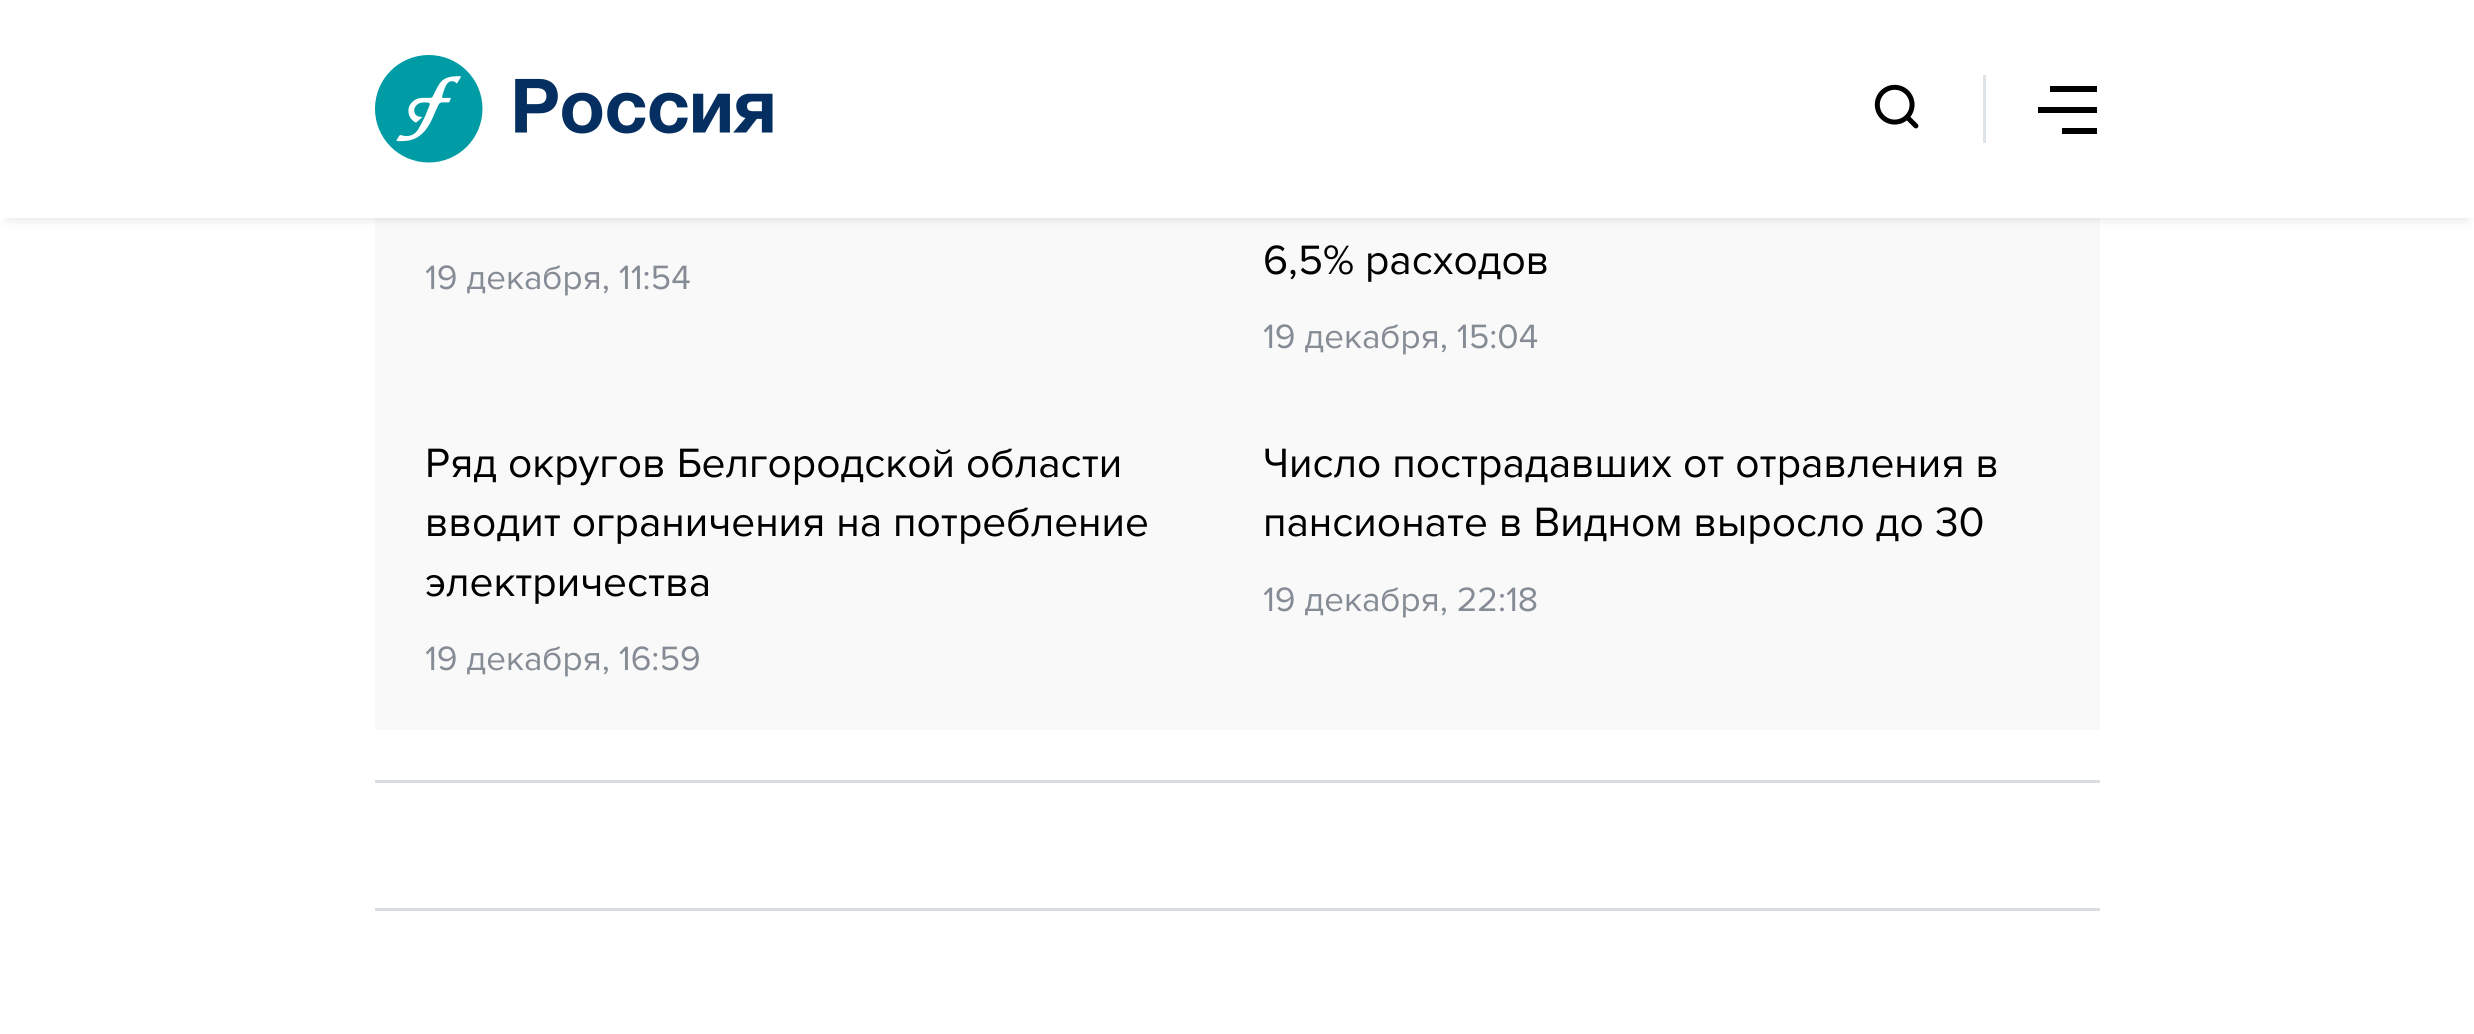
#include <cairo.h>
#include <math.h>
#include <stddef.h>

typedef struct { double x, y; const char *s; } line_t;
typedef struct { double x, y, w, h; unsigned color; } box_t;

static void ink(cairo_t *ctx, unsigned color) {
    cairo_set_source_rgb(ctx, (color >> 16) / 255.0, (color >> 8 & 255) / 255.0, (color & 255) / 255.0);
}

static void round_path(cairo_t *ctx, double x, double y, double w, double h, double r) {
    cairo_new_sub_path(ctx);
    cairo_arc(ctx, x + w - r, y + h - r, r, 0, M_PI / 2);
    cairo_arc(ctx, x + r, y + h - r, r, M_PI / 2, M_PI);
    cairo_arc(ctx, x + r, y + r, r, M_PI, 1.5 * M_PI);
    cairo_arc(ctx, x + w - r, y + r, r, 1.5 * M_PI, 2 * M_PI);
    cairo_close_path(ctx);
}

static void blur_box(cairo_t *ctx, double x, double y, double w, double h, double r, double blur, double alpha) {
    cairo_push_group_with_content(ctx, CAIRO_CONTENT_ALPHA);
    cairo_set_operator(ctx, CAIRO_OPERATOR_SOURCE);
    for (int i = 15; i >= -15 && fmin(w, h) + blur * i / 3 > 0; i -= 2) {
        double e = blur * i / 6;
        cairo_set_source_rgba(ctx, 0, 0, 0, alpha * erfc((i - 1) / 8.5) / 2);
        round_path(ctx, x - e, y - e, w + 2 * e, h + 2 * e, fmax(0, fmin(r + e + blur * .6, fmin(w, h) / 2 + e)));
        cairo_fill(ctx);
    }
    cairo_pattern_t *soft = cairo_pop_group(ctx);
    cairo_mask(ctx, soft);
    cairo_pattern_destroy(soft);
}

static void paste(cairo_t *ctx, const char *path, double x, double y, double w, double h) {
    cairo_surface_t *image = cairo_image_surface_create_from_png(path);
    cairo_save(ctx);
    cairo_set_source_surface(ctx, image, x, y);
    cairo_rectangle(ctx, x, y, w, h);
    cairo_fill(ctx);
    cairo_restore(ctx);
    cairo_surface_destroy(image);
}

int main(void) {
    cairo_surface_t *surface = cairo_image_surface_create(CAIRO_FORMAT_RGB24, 2474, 1034);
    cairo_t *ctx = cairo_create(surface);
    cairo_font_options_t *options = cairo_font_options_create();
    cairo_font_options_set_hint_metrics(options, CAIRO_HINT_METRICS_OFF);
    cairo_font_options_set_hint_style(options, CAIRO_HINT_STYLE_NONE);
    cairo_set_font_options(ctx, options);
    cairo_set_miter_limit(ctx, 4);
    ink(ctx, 0xFFFFFF);
    cairo_paint(ctx);
    ink(ctx, 0xF9F9F9);
    cairo_rectangle(ctx, 375, 218, 1725, 512);
    cairo_fill(ctx);
    cairo_save(ctx);
    cairo_set_fill_rule(ctx, CAIRO_FILL_RULE_EVEN_ODD);
    cairo_new_path(ctx);
    cairo_move_to(ctx, 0, 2);
    cairo_line_to(ctx, 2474, 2);
    cairo_line_to(ctx, 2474, 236);
    cairo_line_to(ctx, 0, 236);
    cairo_close_path(ctx);
    cairo_move_to(ctx, 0, 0);
    cairo_line_to(ctx, 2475, 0);
    cairo_line_to(ctx, 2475, 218);
    cairo_line_to(ctx, 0, 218);
    cairo_close_path(ctx);
    cairo_clip(ctx);
    ink(ctx, 0x000000);
    blur_box(ctx, 8, 18, 2460, 202, 0, 5, 0.1);
    cairo_restore(ctx);
    paste(ctx, "media/1.png", 375, 55, 398, 108);
    ink(ctx, 0xDEE2E9);
    cairo_rectangle(ctx, 1983, 75, 3, 68);
    cairo_fill(ctx);
    paste(ctx, "media/2.png", 1874, 84, 45, 45);
    {
        static const box_t items[] = {
            {2050, 86, 47, 6, 0x000000},
            {2038, 107, 59, 6, 0x000000},
            {2062, 128, 35, 6, 0x000000},
            {375, 780, 1725, 3, 0xD9DCE0},
        };
        for (size_t i = 0; i < sizeof items / sizeof *items; i++) {
            ink(ctx, items[i].color);
            cairo_rectangle(ctx, items[i].x, items[i].y, items[i].w, items[i].h);
            cairo_fill(ctx);
        }
    }
    cairo_select_font_face(ctx, "Proxima Nova", CAIRO_FONT_SLANT_NORMAL, CAIRO_FONT_WEIGHT_NORMAL);
    cairo_set_font_size(ctx, 35);
    ink(ctx, 0x858C95);
    cairo_move_to(ctx, 425, 289);
    cairo_show_text(ctx, "19 декабря, 11:54");
    cairo_set_font_size(ctx, 42.5);
    ink(ctx, 0x000000);
    cairo_move_to(ctx, 1263, 274);
    cairo_show_text(ctx, "6,5% расходов");
    cairo_set_font_size(ctx, 35);
    ink(ctx, 0x858C95);
    cairo_move_to(ctx, 1263, 348);
    cairo_show_text(ctx, "19 декабря, 15:04");
    cairo_set_font_size(ctx, 42.5);
    ink(ctx, 0x000000);
    {
        static const line_t items[] = {
            {425, 477, "Ряд округов Белгородской области"},
            {425, 536, "вводит ограничения на потребление"},
            {425, 596, "электричества"},
        };
        for (size_t i = 0; i < sizeof items / sizeof *items; i++) {
            cairo_move_to(ctx, items[i].x, items[i].y);
            cairo_show_text(ctx, items[i].s);
        }
    }
    cairo_set_font_size(ctx, 35);
    ink(ctx, 0x858C95);
    cairo_move_to(ctx, 425, 670);
    cairo_show_text(ctx, "19 декабря, 16:59");
    cairo_set_font_size(ctx, 42.5);
    ink(ctx, 0x000000);
    cairo_move_to(ctx, 1263, 477);
    cairo_show_text(ctx, "Число пострадавших от отравления в");
    cairo_move_to(ctx, 1263, 536);
    cairo_show_text(ctx, "пансионате в Видном выросло до 30");
    cairo_set_font_size(ctx, 35);
    ink(ctx, 0x858C95);
    cairo_move_to(ctx, 1263, 611);
    cairo_show_text(ctx, "19 декабря, 22:18");
    ink(ctx, 0xD9DCE0);
    cairo_rectangle(ctx, 375, 908, 1725, 3);
    cairo_fill(ctx);
    cairo_surface_write_to_png(surface, "image.png");
    cairo_font_options_destroy(options);
    cairo_destroy(ctx);
    cairo_surface_destroy(surface);
    return 0;
}
